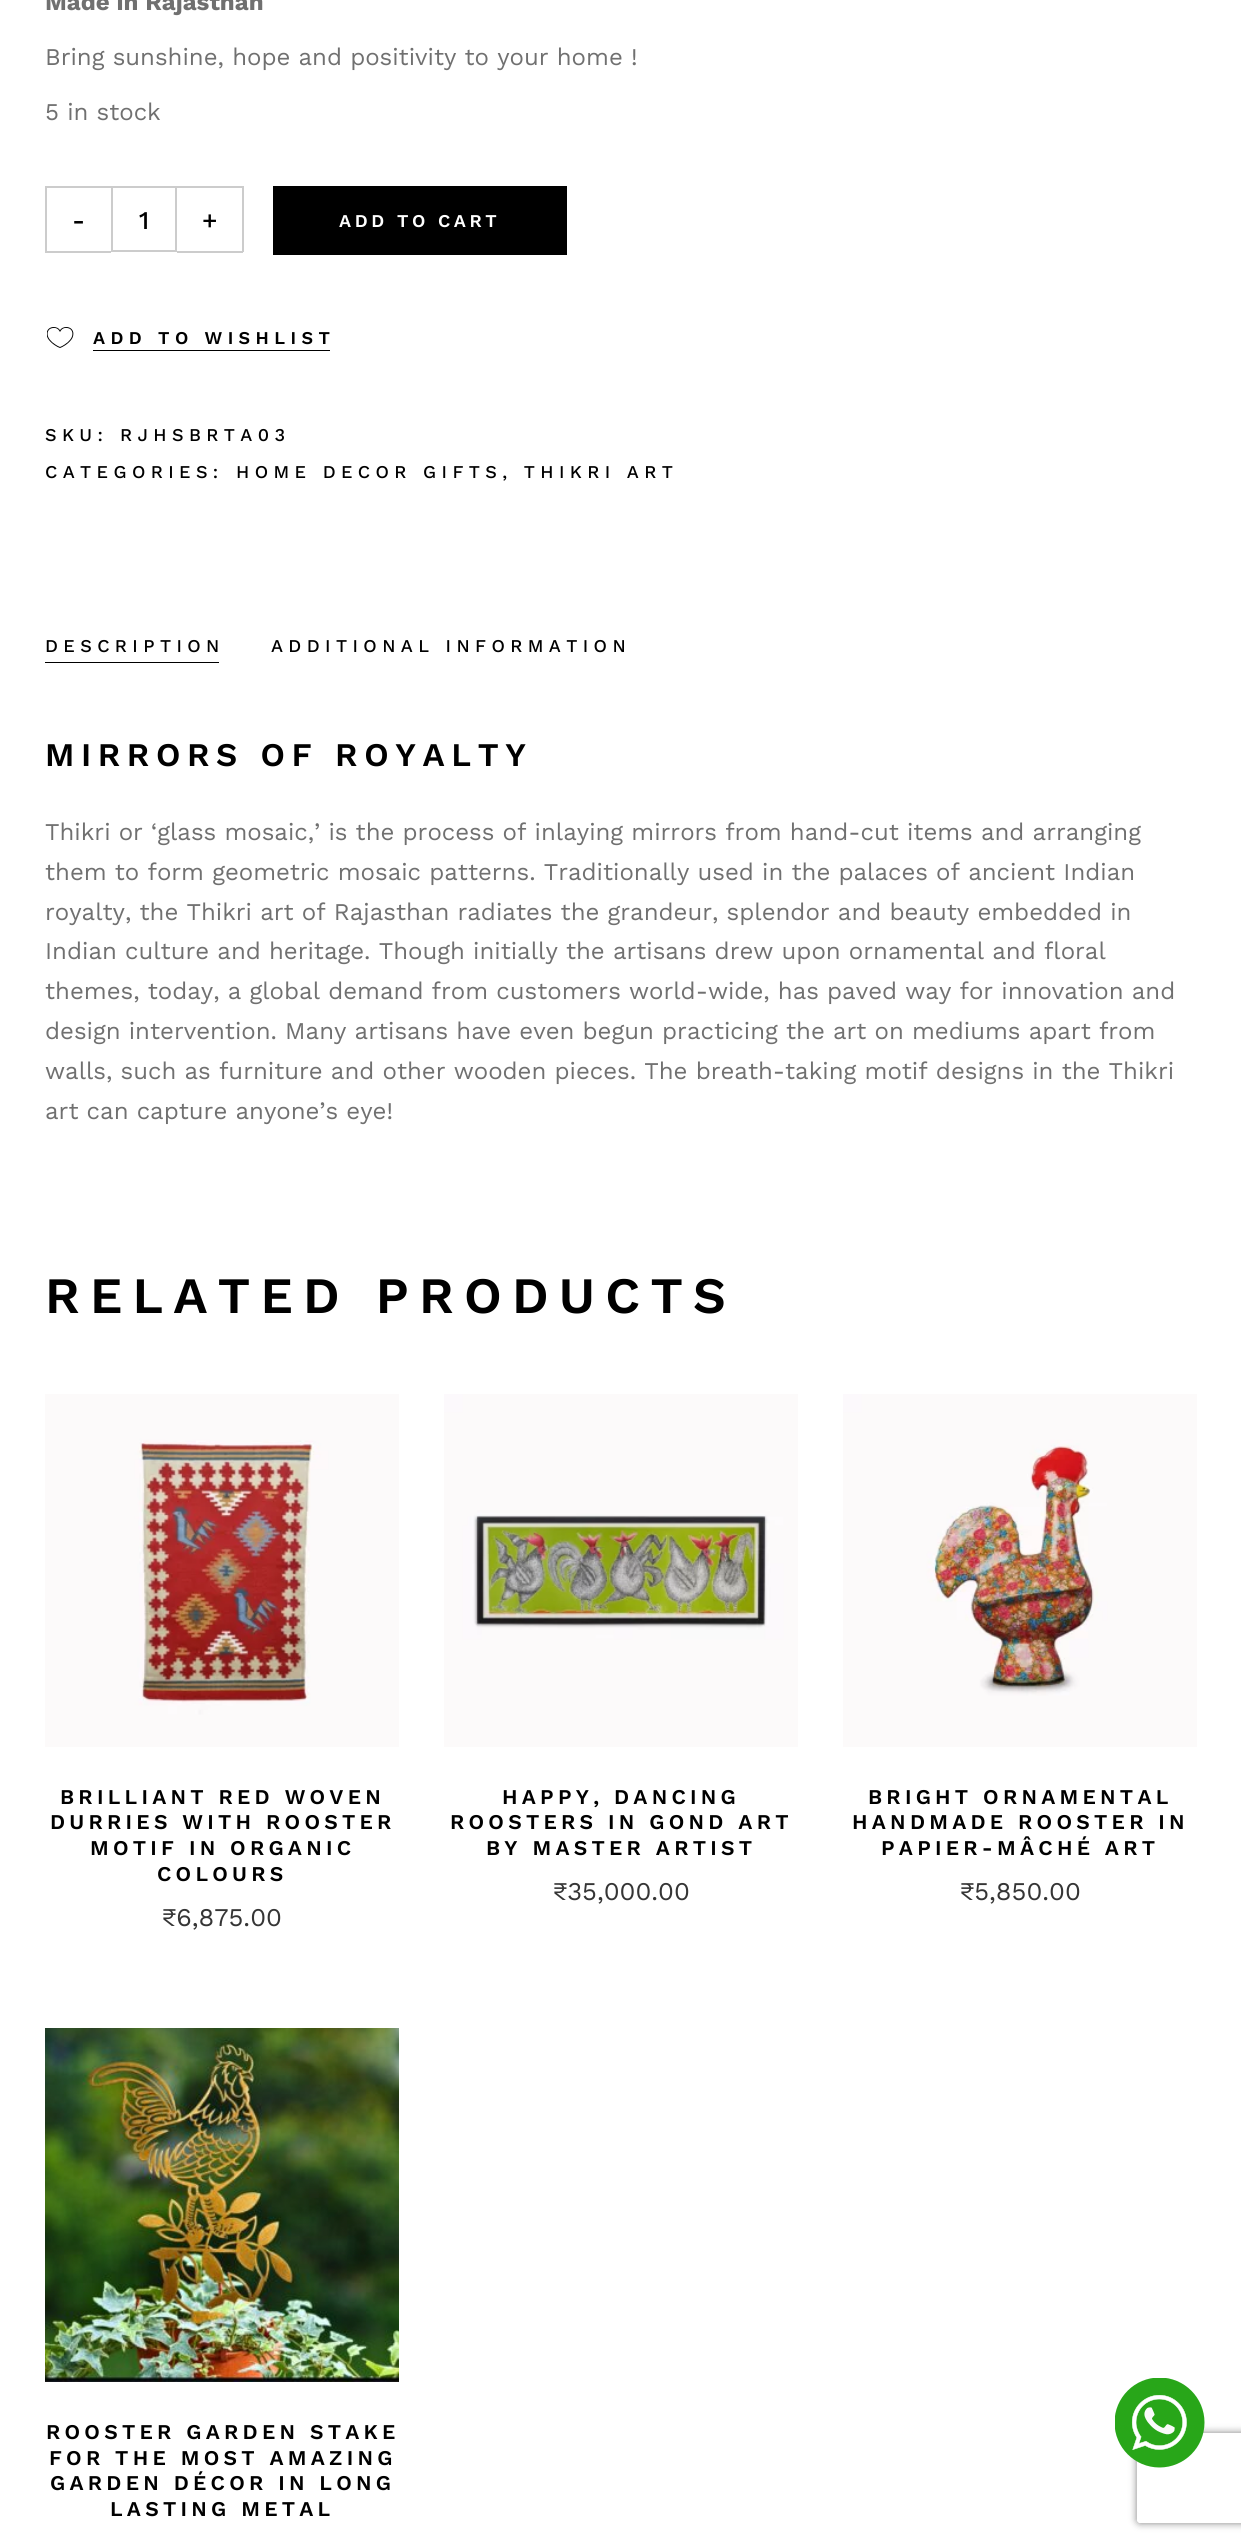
#include <cairo.h>
#include <math.h>
#include <stddef.h>

typedef struct { double x, y; const char *s; } line_t;
typedef struct { double x, y, w, h; unsigned color; } box_t;

static void ink(cairo_t *ctx, unsigned color) {
    cairo_set_source_rgb(ctx, (color >> 16) / 255.0, (color >> 8 & 255) / 255.0, (color & 255) / 255.0);
}

static void write_spaced(cairo_t *ctx, double x, double y, const char *s, double letter, double word) {
    cairo_move_to(ctx, x, y);
    while (*s) {
        char ch[5] = {0};
        int n = 0;
        do ch[n++] = *s++; while ((*s & 0xC0) == 0x80);
        cairo_show_text(ctx, ch);
        cairo_rel_move_to(ctx, letter + word * (*ch == ' '), 0);
    }
}

static void round_path(cairo_t *ctx, double x, double y, double w, double h, double r) {
    cairo_new_sub_path(ctx);
    cairo_arc(ctx, x + w - r, y + h - r, r, 0, M_PI / 2);
    cairo_arc(ctx, x + r, y + h - r, r, M_PI / 2, M_PI);
    cairo_arc(ctx, x + r, y + r, r, M_PI, 1.5 * M_PI);
    cairo_arc(ctx, x + w - r, y + r, r, 1.5 * M_PI, 2 * M_PI);
    cairo_close_path(ctx);
}

static void blur_box(cairo_t *ctx, double x, double y, double w, double h, double r, double blur, double alpha) {
    cairo_push_group_with_content(ctx, CAIRO_CONTENT_ALPHA);
    cairo_set_operator(ctx, CAIRO_OPERATOR_SOURCE);
    for (int i = 15; i >= -15 && fmin(w, h) + blur * i / 3 > 0; i -= 2) {
        double e = blur * i / 6;
        cairo_set_source_rgba(ctx, 0, 0, 0, alpha * erfc((i - 1) / 8.5) / 2);
        round_path(ctx, x - e, y - e, w + 2 * e, h + 2 * e, fmax(0, fmin(r + e + blur * .6, fmin(w, h) / 2 + e)));
        cairo_fill(ctx);
    }
    cairo_pattern_t *soft = cairo_pop_group(ctx);
    cairo_mask(ctx, soft);
    cairo_pattern_destroy(soft);
}

static void paste(cairo_t *ctx, const char *path, double x, double y, double w, double h) {
    cairo_surface_t *image = cairo_image_surface_create_from_png(path);
    cairo_save(ctx);
    cairo_set_source_surface(ctx, image, x, y);
    cairo_rectangle(ctx, x, y, w, h);
    cairo_fill(ctx);
    cairo_restore(ctx);
    cairo_surface_destroy(image);
}

int main(void) {
    cairo_surface_t *surface = cairo_image_surface_create(CAIRO_FORMAT_RGB24, 1241, 2544);
    cairo_t *ctx = cairo_create(surface);
    cairo_font_options_t *options = cairo_font_options_create();
    cairo_font_options_set_hint_metrics(options, CAIRO_HINT_METRICS_OFF);
    cairo_font_options_set_hint_style(options, CAIRO_HINT_STYLE_NONE);
    cairo_set_font_options(ctx, options);
    cairo_set_miter_limit(ctx, 4);
    ink(ctx, 0xFFFFFF);
    cairo_paint(ctx);
    cairo_select_font_face(ctx, "Work Sans", CAIRO_FONT_SLANT_NORMAL, CAIRO_FONT_WEIGHT_BOLD);
    cairo_set_font_size(ctx, 24);
    ink(ctx, 0x707070);
    cairo_move_to(ctx, 45, 10);
    cairo_show_text(ctx, "Made in Rajasthan");
    cairo_select_font_face(ctx, "Work Sans", CAIRO_FONT_SLANT_NORMAL, CAIRO_FONT_WEIGHT_NORMAL);
    cairo_move_to(ctx, 45, 65);
    cairo_show_text(ctx, "Bring sunshine, hope and positivity to your home !");
    cairo_move_to(ctx, 45, 120);
    cairo_show_text(ctx, "5 in stock");
    {
        static const box_t items[] = {
            {45, 186, 66, 2, 0xCCCCCC},
            {45, 251, 66, 2, 0xCCCCCC},
            {45, 186, 2, 66, 0xCCCCCC},
        };
        for (size_t i = 0; i < sizeof items / sizeof *items; i++) {
            ink(ctx, items[i].color);
            cairo_rectangle(ctx, items[i].x, items[i].y, items[i].w, items[i].h);
            cairo_fill(ctx);
        }
    }
    cairo_select_font_face(ctx, "Work Sans Medium", CAIRO_FONT_SLANT_NORMAL, CAIRO_FONT_WEIGHT_NORMAL);
    cairo_set_font_size(ctx, 25.5);
    ink(ctx, 0x000000);
    cairo_move_to(ctx, 72, 229);
    cairo_show_text(ctx, "-");
    cairo_rectangle(ctx, 112, 187, 64, 64);
    ink(ctx, 0xCCCCCC);
    cairo_stroke(ctx);
    ink(ctx, 0x000000);
    cairo_move_to(ctx, 139, 229);
    cairo_show_text(ctx, "1");
    {
        static const box_t items[] = {
            {177, 186, 66, 2, 0xCCCCCC},
            {242, 186, 2, 66, 0xCCCCCC},
            {177, 251, 66, 2, 0xCCCCCC},
        };
        for (size_t i = 0; i < sizeof items / sizeof *items; i++) {
            ink(ctx, items[i].color);
            cairo_rectangle(ctx, items[i].x, items[i].y, items[i].w, items[i].h);
            cairo_fill(ctx);
        }
    }
    ink(ctx, 0x000000);
    cairo_move_to(ctx, 202, 229);
    cairo_show_text(ctx, "+");
    cairo_rectangle(ctx, 273, 186, 294, 69);
    cairo_fill(ctx);
    cairo_select_font_face(ctx, "Work Sans SemiBold", CAIRO_FONT_SLANT_NORMAL, CAIRO_FONT_WEIGHT_NORMAL);
    cairo_set_font_size(ctx, 18);
    ink(ctx, 0xFFFFFF);
    write_spaced(ctx, 339, 227, "ADD TO CART", 3.6, 0);
    ink(ctx, 0x000000);
    cairo_rectangle(ctx, 93, 350, 237, 1);
    cairo_fill(ctx);
    paste(ctx, "media/1.png", 47, 327, 27, 21);
    write_spaced(ctx, 93, 344, "ADD TO WISHLIST", 5.4, 0);
    cairo_select_font_face(ctx, "Work Sans Medium", CAIRO_FONT_SLANT_NORMAL, CAIRO_FONT_WEIGHT_NORMAL);
    {
        static const line_t items[] = {
            {45, 441, "SKU:"},
            {120, 441, "RJHSBRTA03"},
            {45, 478, "CATEGORIES:"},
            {236, 478, "HOME DECOR GIFTS, THIKRI ART"},
        };
        for (size_t i = 0; i < sizeof items / sizeof *items; i++) {
            write_spaced(ctx, items[i].x, items[i].y, items[i].s, 5.4, 0);
        }
    }
    cairo_rectangle(ctx, 45, 662, 174, 1);
    cairo_fill(ctx);
    write_spaced(ctx, 45, 652, "DESCRIPTION", 5.4, 0);
    write_spaced(ctx, 271, 652, "ADDITIONAL INFORMATION", 5.4, 0);
    cairo_select_font_face(ctx, "Work Sans SemiBold", CAIRO_FONT_SLANT_NORMAL, CAIRO_FONT_WEIGHT_NORMAL);
    cairo_set_font_size(ctx, 33);
    write_spaced(ctx, 45, 766, "MIRRORS OF ROYALTY", 6.6, 0);
    cairo_select_font_face(ctx, "Work Sans", CAIRO_FONT_SLANT_NORMAL, CAIRO_FONT_WEIGHT_NORMAL);
    cairo_set_font_size(ctx, 24);
    ink(ctx, 0x707070);
    {
        static const line_t items[] = {
            {45, 840, "Thikri or ‘glass mosaic,’ is the process of inlaying mirrors from hand-cut items and arranging"},
            {45, 880, "them to form geometric mosaic patterns. Traditionally used in the palaces of ancient Indian"},
            {45, 920, "royalty, the Thikri art of Rajasthan radiates the grandeur, splendor and beauty embedded in"},
            {45, 959, "Indian culture and heritage. Though initially the artisans drew upon ornamental and floral"},
            {45, 999, "themes, today, a global demand from customers world-wide, has paved way for innovation and"},
            {45, 1039, "design intervention. Many artisans have even begun practicing the art on mediums apart from"},
            {45, 1079, "walls, such as furniture and other wooden pieces. The breath-taking motif designs in the Thikri"},
            {45, 1119, "art can capture anyone’s eye!"},
        };
        for (size_t i = 0; i < sizeof items / sizeof *items; i++) {
            cairo_move_to(ctx, items[i].x, items[i].y);
            cairo_show_text(ctx, items[i].s);
        }
    }
    cairo_select_font_face(ctx, "Work Sans SemiBold", CAIRO_FONT_SLANT_NORMAL, CAIRO_FONT_WEIGHT_NORMAL);
    cairo_set_font_size(ctx, 51);
    ink(ctx, 0x000000);
    write_spaced(ctx, 45, 1313, "RELATED PRODUCTS", 10.25, 0);
    paste(ctx, "media/2.png", 45, 1394, 354, 353);
    cairo_set_font_size(ctx, 21);
    {
        static const line_t items[] = {
            {60, 1804, "BRILLIANT RED WOVEN"},
            {50, 1829, "DURRIES WITH ROOSTER"},
            {90, 1855, "MOTIF IN ORGANIC"},
            {157, 1881, "COLOURS"},
        };
        for (size_t i = 0; i < sizeof items / sizeof *items; i++) {
            write_spaced(ctx, items[i].x, items[i].y, items[i].s, 4.25, 0);
        }
    }
    cairo_select_font_face(ctx, "Work Sans", CAIRO_FONT_SLANT_NORMAL, CAIRO_FONT_WEIGHT_NORMAL);
    cairo_set_font_size(ctx, 25.5);
    ink(ctx, 0x353535);
    cairo_move_to(ctx, 162, 1926);
    cairo_show_text(ctx, "₹6,875.00");
    paste(ctx, "media/3.png", 444, 1394, 354, 353);
    cairo_select_font_face(ctx, "Work Sans SemiBold", CAIRO_FONT_SLANT_NORMAL, CAIRO_FONT_WEIGHT_NORMAL);
    cairo_set_font_size(ctx, 21);
    ink(ctx, 0x000000);
    {
        static const line_t items[] = {
            {502, 1804, "HAPPY, DANCING"},
            {450, 1829, "ROOSTERS IN GOND ART"},
            {486, 1855, "BY MASTER ARTIST"},
        };
        for (size_t i = 0; i < sizeof items / sizeof *items; i++) {
            write_spaced(ctx, items[i].x, items[i].y, items[i].s, 4.25, 0);
        }
    }
    cairo_select_font_face(ctx, "Work Sans", CAIRO_FONT_SLANT_NORMAL, CAIRO_FONT_WEIGHT_NORMAL);
    cairo_set_font_size(ctx, 25.5);
    ink(ctx, 0x353535);
    cairo_move_to(ctx, 553, 1900);
    cairo_show_text(ctx, "₹35,000.00");
    paste(ctx, "media/4.png", 843, 1394, 354, 353);
    cairo_select_font_face(ctx, "Work Sans SemiBold", CAIRO_FONT_SLANT_NORMAL, CAIRO_FONT_WEIGHT_NORMAL);
    cairo_set_font_size(ctx, 21);
    ink(ctx, 0x000000);
    {
        static const line_t items[] = {
            {868, 1804, "BRIGHT ORNAMENTAL"},
            {852, 1829, "HANDMADE ROOSTER IN"},
            {881, 1855, "PAPIER-MÂCHÉ ART"},
        };
        for (size_t i = 0; i < sizeof items / sizeof *items; i++) {
            write_spaced(ctx, items[i].x, items[i].y, items[i].s, 4.25, 0);
        }
    }
    cairo_select_font_face(ctx, "Work Sans", CAIRO_FONT_SLANT_NORMAL, CAIRO_FONT_WEIGHT_NORMAL);
    cairo_set_font_size(ctx, 25.5);
    ink(ctx, 0x353535);
    cairo_move_to(ctx, 960, 1900);
    cairo_show_text(ctx, "₹5,850.00");
    paste(ctx, "media/5.png", 45, 2028, 354, 354);
    cairo_select_font_face(ctx, "Work Sans SemiBold", CAIRO_FONT_SLANT_NORMAL, CAIRO_FONT_WEIGHT_NORMAL);
    cairo_set_font_size(ctx, 21);
    ink(ctx, 0x000000);
    {
        static const line_t items[] = {
            {46, 2439, "ROOSTER GARDEN STAKE"},
            {49, 2465, "FOR THE MOST AMAZING"},
            {50, 2490, "GARDEN DÉCOR IN LONG"},
            {110, 2516, "LASTING METAL"},
        };
        for (size_t i = 0; i < sizeof items / sizeof *items; i++) {
            write_spaced(ctx, items[i].x, items[i].y, items[i].s, 4.25, 0);
        }
    }
    cairo_save(ctx);
    cairo_set_fill_rule(ctx, CAIRO_FILL_RULE_EVEN_ODD);
    cairo_new_path(ctx);
    cairo_move_to(ctx, 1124, 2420);
    cairo_line_to(ctx, 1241, 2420);
    cairo_line_to(ctx, 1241, 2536);
    cairo_line_to(ctx, 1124, 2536);
    cairo_close_path(ctx);
    cairo_move_to(ctx, 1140, 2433);
    cairo_line_to(ctx, 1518, 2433);
    cairo_curve_to(ctx, 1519.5, 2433, 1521, 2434.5, 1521, 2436);
    cairo_line_to(ctx, 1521, 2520);
    cairo_curve_to(ctx, 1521, 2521.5, 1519.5, 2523, 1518, 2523);
    cairo_line_to(ctx, 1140, 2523);
    cairo_curve_to(ctx, 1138.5, 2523, 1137, 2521.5, 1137, 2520);
    cairo_line_to(ctx, 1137, 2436);
    cairo_curve_to(ctx, 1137, 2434.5, 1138.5, 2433, 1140, 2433);
    cairo_close_path(ctx);
    cairo_clip(ctx);
    ink(ctx, 0x808080);
    blur_box(ctx, 1137, 2433, 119, 90, 3, 4, 1);
    cairo_restore(ctx);
    paste(ctx, "media/6.png", 1115, 2378, 90, 90);
    cairo_surface_write_to_png(surface, "image.png");
    cairo_font_options_destroy(options);
    cairo_destroy(ctx);
    cairo_surface_destroy(surface);
    return 0;
}
